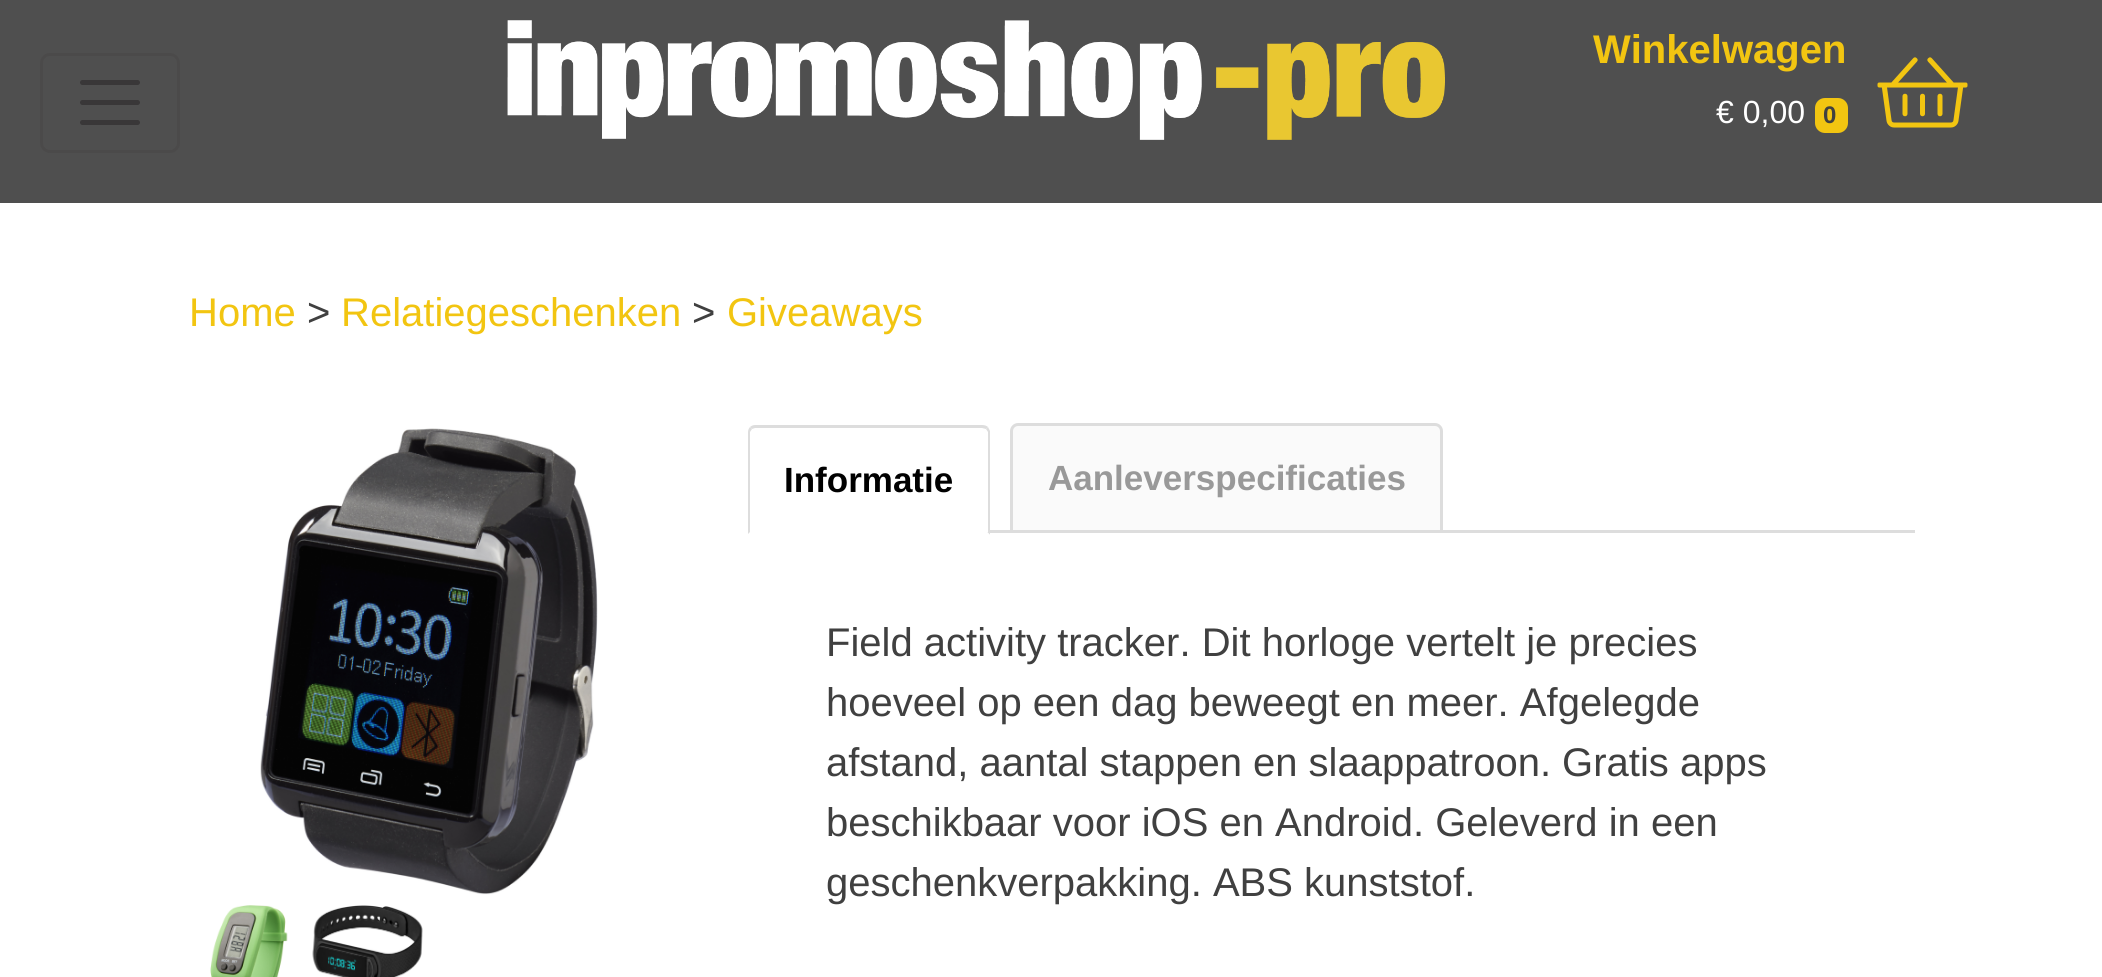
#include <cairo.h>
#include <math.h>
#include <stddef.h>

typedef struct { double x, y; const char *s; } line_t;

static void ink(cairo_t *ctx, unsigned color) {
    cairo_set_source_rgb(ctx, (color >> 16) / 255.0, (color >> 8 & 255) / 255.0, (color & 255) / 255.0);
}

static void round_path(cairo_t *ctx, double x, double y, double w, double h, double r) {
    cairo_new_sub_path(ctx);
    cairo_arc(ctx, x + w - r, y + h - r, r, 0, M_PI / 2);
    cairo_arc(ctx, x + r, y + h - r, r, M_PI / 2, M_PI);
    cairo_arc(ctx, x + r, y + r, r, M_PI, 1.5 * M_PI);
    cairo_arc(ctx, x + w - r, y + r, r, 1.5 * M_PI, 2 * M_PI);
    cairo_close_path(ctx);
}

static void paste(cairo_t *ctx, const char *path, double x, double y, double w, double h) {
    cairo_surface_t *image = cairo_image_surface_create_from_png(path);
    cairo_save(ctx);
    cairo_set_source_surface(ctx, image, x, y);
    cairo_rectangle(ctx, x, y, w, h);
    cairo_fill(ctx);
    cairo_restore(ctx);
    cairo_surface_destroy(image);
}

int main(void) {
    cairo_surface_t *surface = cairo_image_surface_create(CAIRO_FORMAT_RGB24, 2102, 977);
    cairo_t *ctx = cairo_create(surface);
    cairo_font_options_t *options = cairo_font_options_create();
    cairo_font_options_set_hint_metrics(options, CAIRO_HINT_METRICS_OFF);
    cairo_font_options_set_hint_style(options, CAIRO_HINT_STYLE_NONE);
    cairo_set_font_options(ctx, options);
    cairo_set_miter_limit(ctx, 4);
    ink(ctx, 0xFFFFFF);
    cairo_paint(ctx);
    ink(ctx, 0x4F4F4F);
    cairo_rectangle(ctx, 0, 0, 2102, 203);
    cairo_fill(ctx);
    round_path(ctx, 41.5, 54.5, 137, 97, 8.5);
    ink(ctx, 0x4B4A4A);
    cairo_set_line_width(ctx, 3);
    cairo_stroke(ctx);
    cairo_new_path(ctx);
    cairo_move_to(ctx, 82.5, 82.5);
    cairo_line_to(ctx, 137.5, 82.5);
    cairo_move_to(ctx, 82.5, 102.5);
    cairo_line_to(ctx, 137.5, 102.5);
    cairo_move_to(ctx, 82.5, 122.5);
    cairo_line_to(ctx, 137.5, 122.5);
    ink(ctx, 0x393738);
    cairo_set_line_width(ctx, 5);
    cairo_set_line_cap(ctx, CAIRO_LINE_CAP_ROUND);
    cairo_stroke(ctx);
    paste(ctx, "media/1.png", 507, 20, 938, 120);
    cairo_select_font_face(ctx, "Liberation Sans", CAIRO_FONT_SLANT_NORMAL, CAIRO_FONT_WEIGHT_BOLD);
    cairo_set_font_size(ctx, 40);
    ink(ctx, 0xF2C511);
    cairo_move_to(ctx, 1593, 63);
    cairo_show_text(ctx, "Winkelwagen");
    cairo_select_font_face(ctx, "Liberation Sans", CAIRO_FONT_SLANT_NORMAL, CAIRO_FONT_WEIGHT_NORMAL);
    cairo_set_font_size(ctx, 32);
    ink(ctx, 0xFFFFFF);
    cairo_move_to(ctx, 1716, 123);
    cairo_show_text(ctx, "€ 0,00");
    ink(ctx, 0xF2C511);
    round_path(ctx, 1815, 98, 33, 35, 10);
    cairo_fill(ctx);
    cairo_select_font_face(ctx, "Liberation Sans", CAIRO_FONT_SLANT_NORMAL, CAIRO_FONT_WEIGHT_BOLD);
    cairo_set_font_size(ctx, 24);
    ink(ctx, 0x404040);
    cairo_move_to(ctx, 1823, 123);
    cairo_show_text(ctx, "0");
    paste(ctx, "media/2.png", 1877, 57, 91, 71);
    cairo_select_font_face(ctx, "Liberation Sans", CAIRO_FONT_SLANT_NORMAL, CAIRO_FONT_WEIGHT_NORMAL);
    cairo_set_font_size(ctx, 40);
    ink(ctx, 0xF2C511);
    cairo_move_to(ctx, 189, 326);
    cairo_show_text(ctx, "Home");
    ink(ctx, 0x404040);
    cairo_move_to(ctx, 307, 326);
    cairo_show_text(ctx, ">");
    ink(ctx, 0xF2C511);
    cairo_move_to(ctx, 341, 326);
    cairo_show_text(ctx, "Relatiegeschenken");
    ink(ctx, 0x404040);
    cairo_move_to(ctx, 692, 326);
    cairo_show_text(ctx, ">");
    ink(ctx, 0xF2C511);
    cairo_move_to(ctx, 727, 326);
    cairo_show_text(ctx, "Giveaways");
    paste(ctx, "media/3.png", 260, 428, 338, 467);
    paste(ctx, "media/4.png", 210, 905, 78, 72);
    paste(ctx, "media/5.png", 312, 905, 111, 72);
    ink(ctx, 0xDDDDDD);
    cairo_new_path(ctx);
    cairo_move_to(ctx, 755, 425);
    cairo_curve_to(ctx, 753, 425, 751, 426, 750, 427);
    cairo_line_to(ctx, 752, 429);
    cairo_line_to(ctx, 755, 428);
    cairo_line_to(ctx, 982, 428);
    cairo_line_to(ctx, 986, 429);
    cairo_line_to(ctx, 988, 427);
    cairo_curve_to(ctx, 987, 426, 985, 425, 982, 425);
    cairo_close_path(ctx);
    cairo_fill(ctx);
    cairo_new_path(ctx);
    cairo_move_to(ctx, 990, 535);
    cairo_line_to(ctx, 990, 431);
    cairo_line_to(ctx, 988, 427);
    cairo_line_to(ctx, 986, 429);
    cairo_line_to(ctx, 988, 432);
    cairo_line_to(ctx, 988, 532);
    cairo_line_to(ctx, 987, 532);
    cairo_close_path(ctx);
    cairo_fill(ctx);
    ink(ctx, 0xFFFFFF);
    cairo_new_path(ctx);
    cairo_move_to(ctx, 990, 535);
    cairo_line_to(ctx, 987, 532);
    cairo_line_to(ctx, 750, 532);
    cairo_line_to(ctx, 748, 535);
    cairo_close_path(ctx);
    cairo_fill(ctx);
    ink(ctx, 0xDDDDDD);
    cairo_new_path(ctx);
    cairo_move_to(ctx, 750, 427);
    cairo_curve_to(ctx, 749, 428, 748, 430, 748, 432);
    cairo_line_to(ctx, 748, 534);
    cairo_line_to(ctx, 750, 532);
    cairo_line_to(ctx, 750, 432);
    cairo_line_to(ctx, 752, 429);
    cairo_close_path(ctx);
    cairo_fill(ctx);
    cairo_select_font_face(ctx, "Liberation Sans", CAIRO_FONT_SLANT_NORMAL, CAIRO_FONT_WEIGHT_BOLD);
    cairo_set_font_size(ctx, 35);
    ink(ctx, 0x000000);
    cairo_move_to(ctx, 784, 492);
    cairo_show_text(ctx, "Informatie");
    ink(ctx, 0xDDDDDD);
    cairo_rectangle(ctx, 990, 530, 925, 3);
    cairo_fill(ctx);
    ink(ctx, 0xFAFAFA);
    cairo_new_path(ctx);
    cairo_move_to(ctx, 1018, 424.5);
    cairo_line_to(ctx, 1435, 424.5);
    cairo_curve_to(ctx, 1438.5, 424.5, 1441.5, 427.5, 1441.5, 431);
    cairo_line_to(ctx, 1441.5, 531.5);
    cairo_line_to(ctx, 1011.5, 531.5);
    cairo_line_to(ctx, 1011.5, 431);
    cairo_curve_to(ctx, 1011.5, 427.5, 1014.5, 424.5, 1018, 424.5);
    cairo_close_path(ctx);
    cairo_fill_preserve(ctx);
    ink(ctx, 0xDDDDDD);
    cairo_set_line_width(ctx, 3);
    cairo_set_line_cap(ctx, CAIRO_LINE_CAP_BUTT);
    cairo_stroke(ctx);
    ink(ctx, 0x999999);
    cairo_move_to(ctx, 1048, 490);
    cairo_show_text(ctx, "Aanleverspecificaties");
    cairo_select_font_face(ctx, "Liberation Sans", CAIRO_FONT_SLANT_NORMAL, CAIRO_FONT_WEIGHT_NORMAL);
    cairo_set_font_size(ctx, 40);
    ink(ctx, 0x404040);
    {
        static const line_t items[] = {
            {826, 656, "Field activity tracker. Dit horloge vertelt je precies"},
            {826, 716, "hoeveel op een dag beweegt en meer. Afgelegde"},
            {826, 776, "afstand, aantal stappen en slaappatroon. Gratis apps"},
            {826, 836, "beschikbaar voor iOS en Android. Geleverd in een"},
            {826, 896, "geschenkverpakking. ABS kunststof."},
        };
        for (size_t i = 0; i < sizeof items / sizeof *items; i++) {
            cairo_move_to(ctx, items[i].x, items[i].y);
            cairo_show_text(ctx, items[i].s);
        }
    }
    cairo_surface_write_to_png(surface, "image.png");
    cairo_font_options_destroy(options);
    cairo_destroy(ctx);
    cairo_surface_destroy(surface);
    return 0;
}
